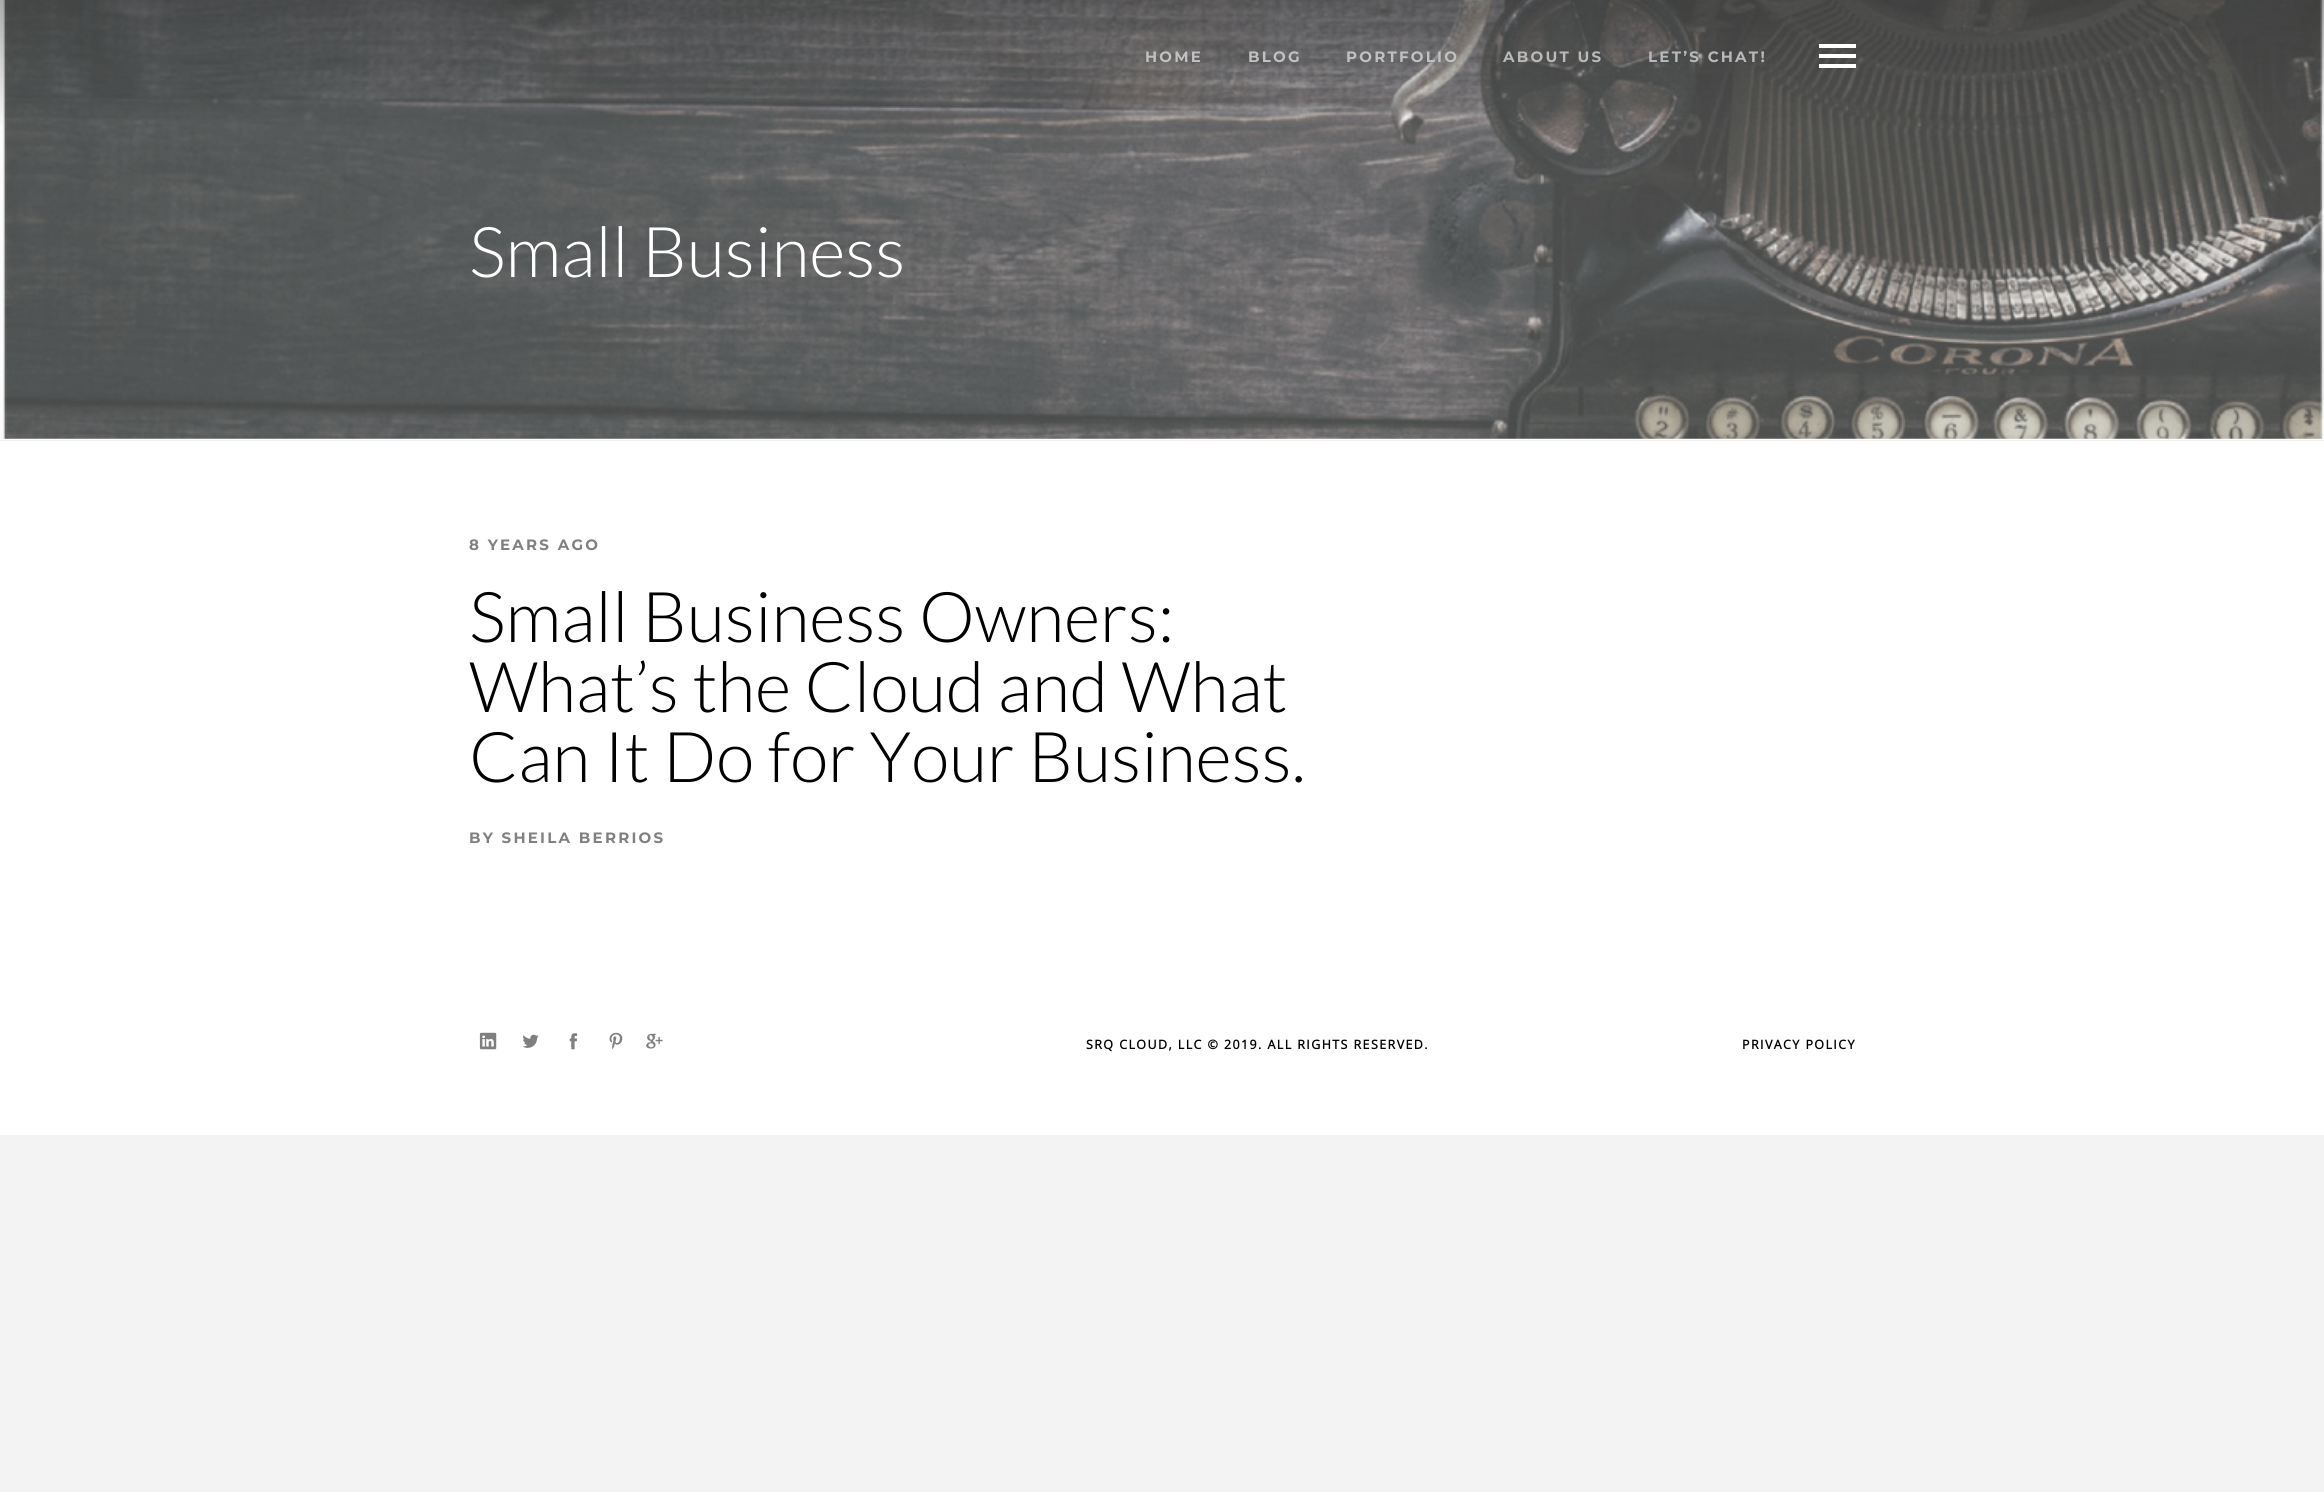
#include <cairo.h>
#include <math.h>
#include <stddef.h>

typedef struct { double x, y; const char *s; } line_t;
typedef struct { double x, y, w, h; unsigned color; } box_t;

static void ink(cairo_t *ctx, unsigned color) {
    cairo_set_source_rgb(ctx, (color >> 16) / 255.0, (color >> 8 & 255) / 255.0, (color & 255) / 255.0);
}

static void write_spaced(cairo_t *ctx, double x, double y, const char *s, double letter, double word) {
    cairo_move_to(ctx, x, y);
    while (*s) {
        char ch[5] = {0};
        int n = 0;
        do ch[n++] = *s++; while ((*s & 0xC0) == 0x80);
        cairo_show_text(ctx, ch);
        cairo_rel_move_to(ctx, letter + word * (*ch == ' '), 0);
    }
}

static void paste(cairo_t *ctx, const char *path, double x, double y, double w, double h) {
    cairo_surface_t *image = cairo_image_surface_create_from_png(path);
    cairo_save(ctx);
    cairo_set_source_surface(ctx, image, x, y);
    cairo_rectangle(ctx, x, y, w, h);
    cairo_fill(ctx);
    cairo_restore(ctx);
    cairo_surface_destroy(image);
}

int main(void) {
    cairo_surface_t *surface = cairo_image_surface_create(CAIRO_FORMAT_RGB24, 2324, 1492);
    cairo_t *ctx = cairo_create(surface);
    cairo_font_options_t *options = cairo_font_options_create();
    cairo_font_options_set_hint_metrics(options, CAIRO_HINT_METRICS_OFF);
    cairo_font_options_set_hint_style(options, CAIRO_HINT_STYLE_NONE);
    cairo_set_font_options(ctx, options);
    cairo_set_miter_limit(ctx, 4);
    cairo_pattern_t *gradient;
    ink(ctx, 0xF3F3F3);
    cairo_paint(ctx);
    ink(ctx, 0xFFFFFF);
    cairo_rectangle(ctx, 0, 438, 2324, 697);
    cairo_fill(ctx);
    paste(ctx, "media/1.png", 0, 0, 2324, 439);
    gradient = cairo_pattern_create_linear(1163, 0, 1163, 439);
    cairo_pattern_add_color_stop_rgba(gradient, 0, 0.192, 0.192, 0.192, 0.4);
    cairo_pattern_add_color_stop_rgba(gradient, 0.3, 0.192, 0.192, 0.192, 0);
    cairo_set_source(ctx, gradient);
    cairo_pattern_destroy(gradient);
    cairo_rectangle(ctx, 0, 0, 2324, 125);
    cairo_fill(ctx);
    cairo_select_font_face(ctx, "Montserrat Thin", CAIRO_FONT_SLANT_NORMAL, CAIRO_FONT_WEIGHT_NORMAL);
    cairo_set_font_size(ctx, 15);
    ink(ctx, 0xC2C1C1);
    {
        static const line_t items[] = {
            {1145, 62, "HOME"},
            {1248, 62, "BLOG"},
            {1346, 62, "PORTFOLIO"},
        };
        for (size_t i = 0; i < sizeof items / sizeof *items; i++) {
            write_spaced(ctx, items[i].x, items[i].y, items[i].s, 2.25, 0);
        }
    }
    ink(ctx, 0xB9B9B9);
    write_spaced(ctx, 1503, 62, "ABOUT US", 2.25, 0);
    write_spaced(ctx, 1648, 62, "LET’S CHAT!", 2.25, 0);
    {
        static const box_t items[] = {
            {1819, 54, 37, 4, 0xFFFFFF},
            {1819, 44, 37, 4, 0xFFFFFF},
            {1819, 64, 37, 4, 0xFFFFFF},
        };
        for (size_t i = 0; i < sizeof items / sizeof *items; i++) {
            ink(ctx, items[i].color);
            cairo_rectangle(ctx, items[i].x, items[i].y, items[i].w, items[i].h);
            cairo_fill(ctx);
        }
    }
    cairo_select_font_face(ctx, "Lato Light", CAIRO_FONT_SLANT_NORMAL, CAIRO_FONT_WEIGHT_NORMAL);
    cairo_set_font_size(ctx, 70);
    cairo_move_to(ctx, 469, 277);
    cairo_show_text(ctx, "Small Business");
    ink(ctx, 0xF2F2F2);
    cairo_rectangle(ctx, 0, 440, 2324, 1);
    cairo_fill(ctx);
    cairo_select_font_face(ctx, "Montserrat Thin", CAIRO_FONT_SLANT_NORMAL, CAIRO_FONT_WEIGHT_NORMAL);
    cairo_set_font_size(ctx, 15);
    ink(ctx, 0x808080);
    write_spaced(ctx, 469, 550, "8 YEARS AGO", 2.25, 0);
    cairo_select_font_face(ctx, "Lato Light", CAIRO_FONT_SLANT_NORMAL, CAIRO_FONT_WEIGHT_NORMAL);
    cairo_set_font_size(ctx, 70);
    ink(ctx, 0x000000);
    {
        static const line_t items[] = {
            {469, 642, "Small Business Owners:"},
            {469, 712, "What’s the Cloud and What"},
            {469, 782, "Can It Do for Your Business."},
        };
        for (size_t i = 0; i < sizeof items / sizeof *items; i++) {
            cairo_move_to(ctx, items[i].x, items[i].y);
            cairo_show_text(ctx, items[i].s);
        }
    }
    cairo_select_font_face(ctx, "Montserrat Thin", CAIRO_FONT_SLANT_NORMAL, CAIRO_FONT_WEIGHT_NORMAL);
    cairo_set_font_size(ctx, 15);
    ink(ctx, 0x808080);
    write_spaced(ctx, 469, 843, "BY SHEILA BERRIOS", 2.25, 0);
    paste(ctx, "media/2.png", 479, 1032, 18, 18);
    paste(ctx, "media/3.png", 522, 1034, 17, 14);
    paste(ctx, "media/4.png", 569, 1033, 9, 17);
    paste(ctx, "media/5.png", 609, 1032, 14, 18);
    paste(ctx, "media/6.png", 646, 1033, 17, 16);
    cairo_select_font_face(ctx, "Open Sans", CAIRO_FONT_SLANT_NORMAL, CAIRO_FONT_WEIGHT_BOLD);
    cairo_set_font_size(ctx, 12.5);
    ink(ctx, 0x000000);
    write_spaced(ctx, 1086, 1049, "SRQ CLOUD, LLC © 2019. ALL RIGHTS RESERVED.", 1.4, 0);
    write_spaced(ctx, 1742, 1049, "PRIVACY POLICY", 1.4, 0);
    cairo_surface_write_to_png(surface, "image.png");
    cairo_font_options_destroy(options);
    cairo_destroy(ctx);
    cairo_surface_destroy(surface);
    return 0;
}
